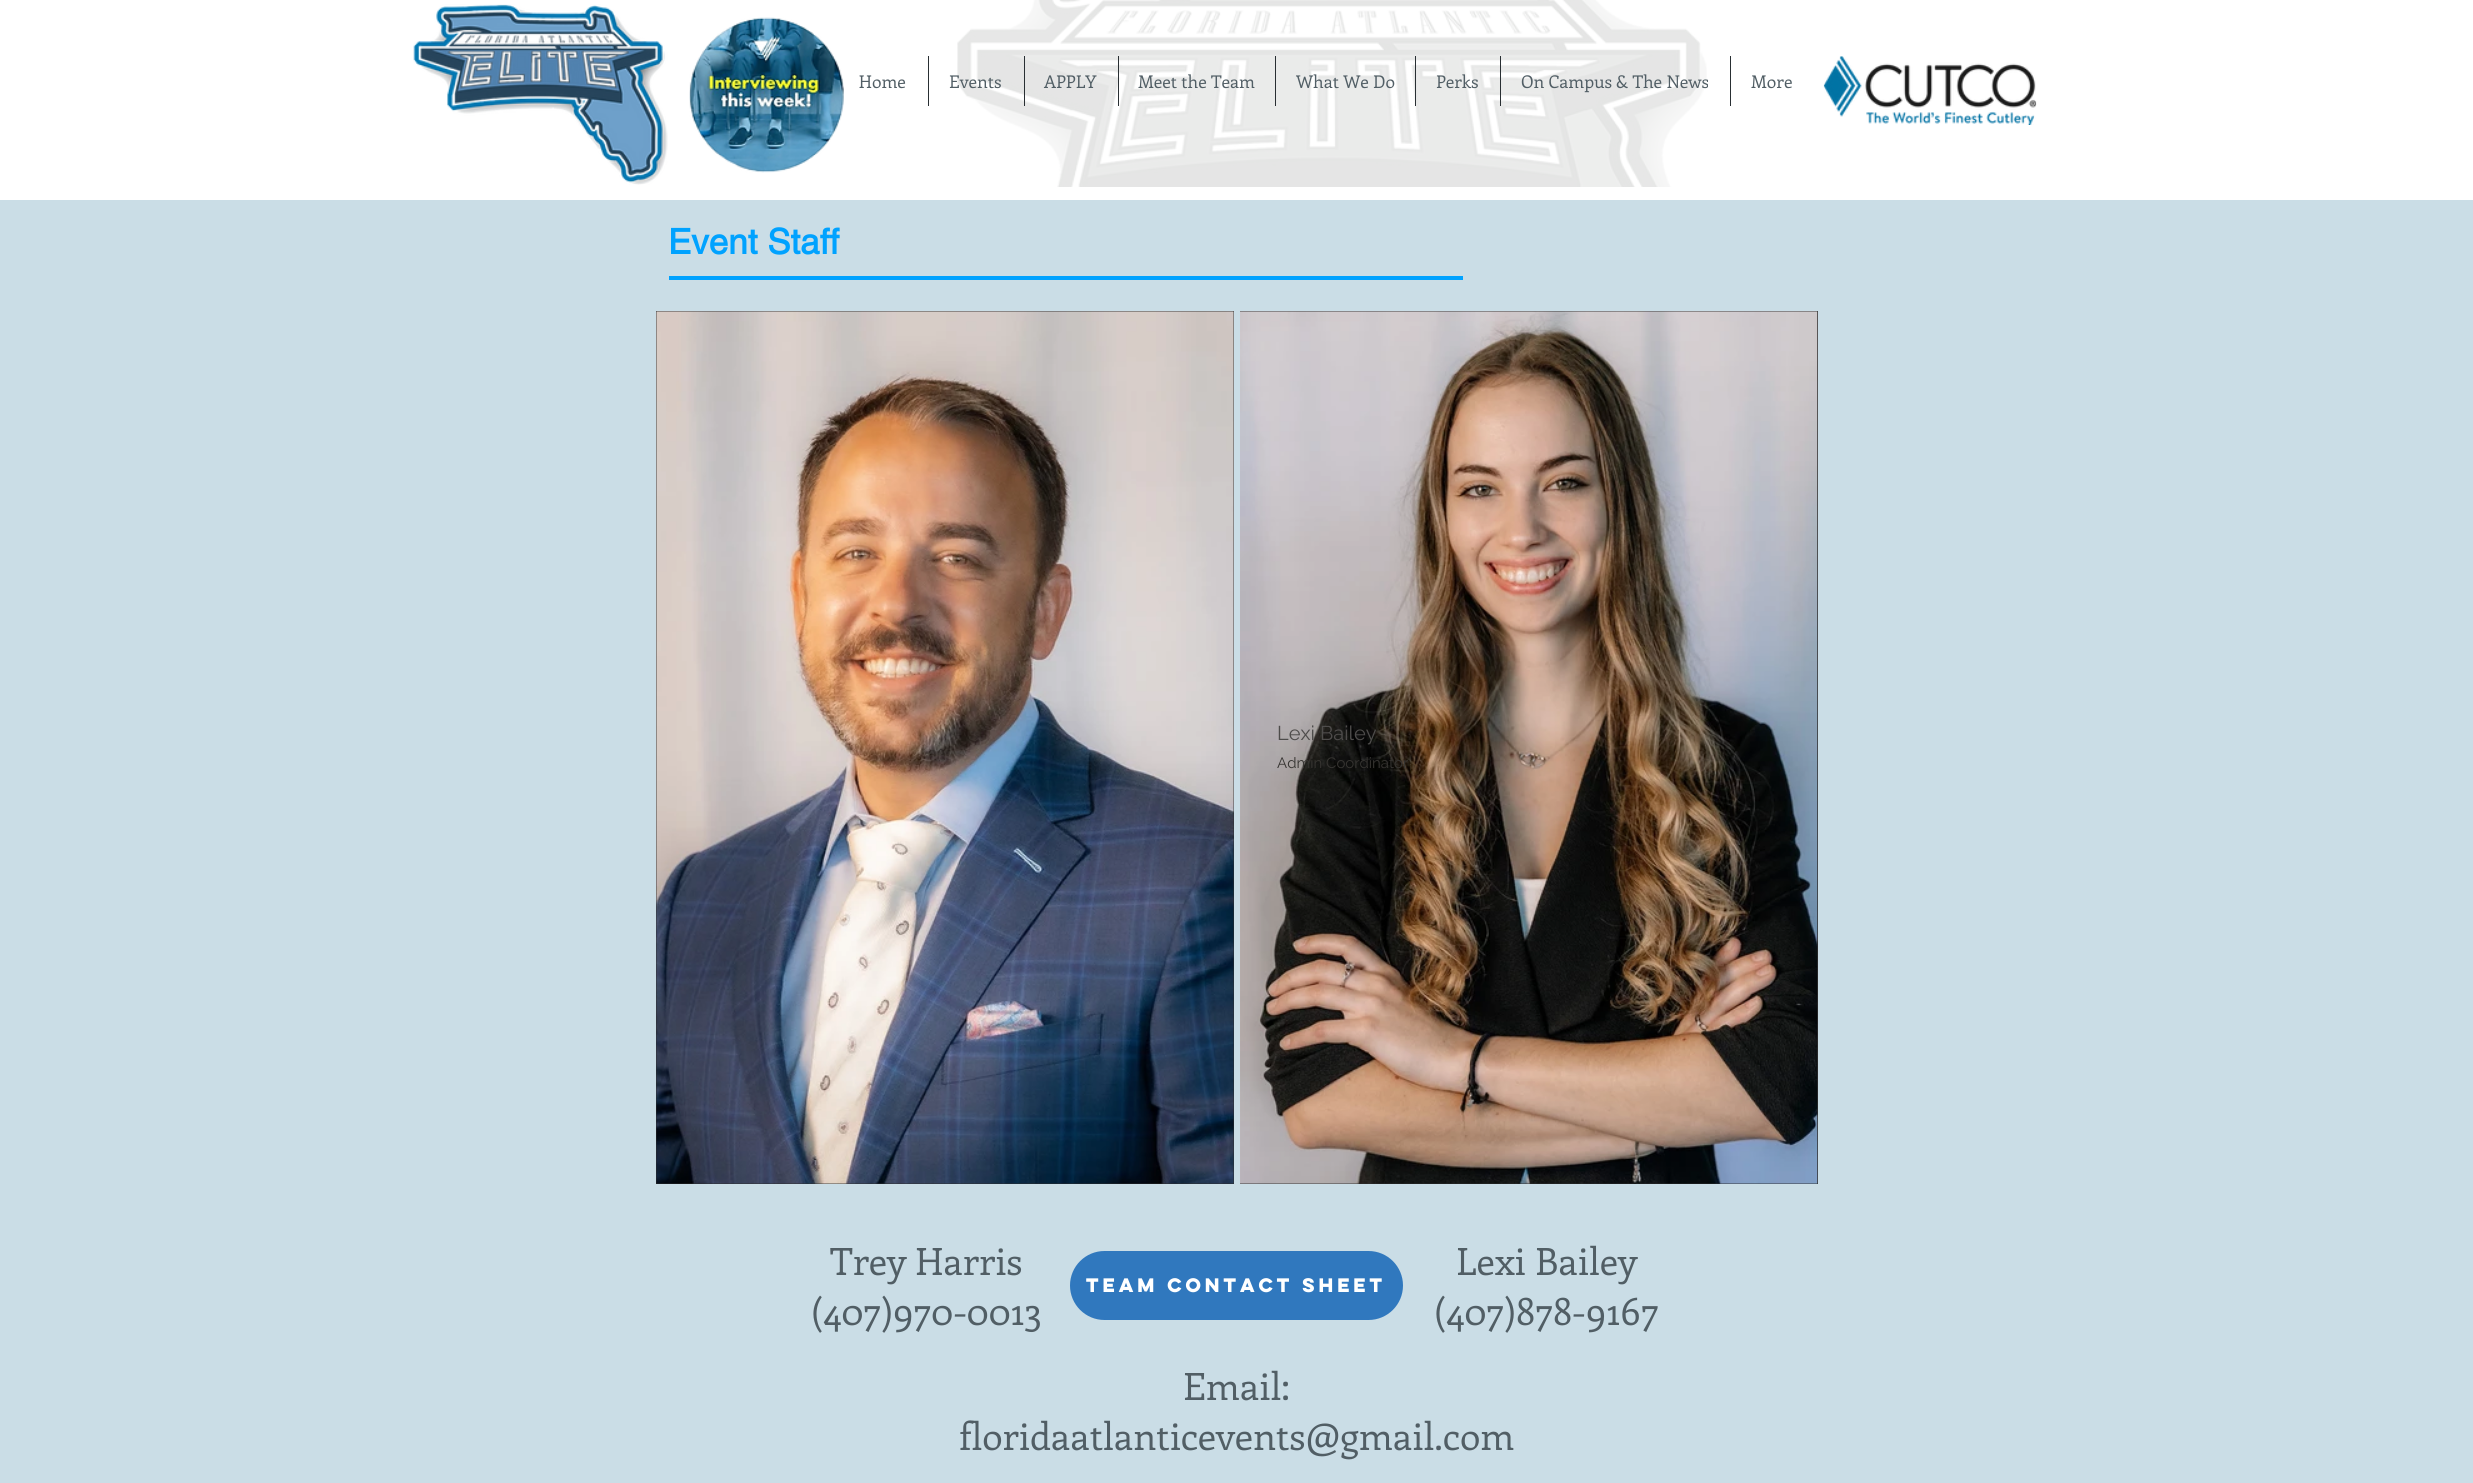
#include <cairo.h>
#include <math.h>
#include <stddef.h>

typedef struct { double x, y; const char *s; } line_t;

static void ink(cairo_t *ctx, unsigned color) {
    cairo_set_source_rgb(ctx, (color >> 16) / 255.0, (color >> 8 & 255) / 255.0, (color & 255) / 255.0);
}

static void round_path(cairo_t *ctx, double x, double y, double w, double h, double r) {
    cairo_new_sub_path(ctx);
    cairo_arc(ctx, x + w - r, y + h - r, r, 0, M_PI / 2);
    cairo_arc(ctx, x + r, y + h - r, r, M_PI / 2, M_PI);
    cairo_arc(ctx, x + r, y + r, r, M_PI, 1.5 * M_PI);
    cairo_arc(ctx, x + w - r, y + r, r, 1.5 * M_PI, 2 * M_PI);
    cairo_close_path(ctx);
}

static void paste(cairo_t *ctx, const char *path, double x, double y, double w, double h) {
    cairo_surface_t *image = cairo_image_surface_create_from_png(path);
    cairo_save(ctx);
    cairo_set_source_surface(ctx, image, x, y);
    cairo_rectangle(ctx, x, y, w, h);
    cairo_fill(ctx);
    cairo_restore(ctx);
    cairo_surface_destroy(image);
}

int main(void) {
    cairo_surface_t *surface = cairo_image_surface_create(CAIRO_FORMAT_RGB24, 2473, 1483);
    cairo_t *ctx = cairo_create(surface);
    cairo_font_options_t *options = cairo_font_options_create();
    cairo_font_options_set_hint_metrics(options, CAIRO_HINT_METRICS_OFF);
    cairo_font_options_set_hint_style(options, CAIRO_HINT_STYLE_NONE);
    cairo_set_font_options(ctx, options);
    cairo_set_miter_limit(ctx, 4);
    ink(ctx, 0xCADDE6);
    cairo_paint(ctx);
    ink(ctx, 0xFFFFFF);
    cairo_rectangle(ctx, 0, 0, 2473, 200);
    cairo_fill(ctx);
    paste(ctx, "media/1.png", 413, 4, 255, 181);
    paste(ctx, "media/2.png", 689, 17, 155, 156);
    paste(ctx, "media/3.png", 957, 0, 750, 187);
    paste(ctx, "media/4.png", 1823, 56, 214, 69);
    cairo_select_font_face(ctx, "Enriqueta", CAIRO_FONT_SLANT_NORMAL, CAIRO_FONT_WEIGHT_NORMAL);
    cairo_set_font_size(ctx, 17.5);
    ink(ctx, 0x515E65);
    cairo_move_to(ctx, 859, 88);
    cairo_show_text(ctx, "Home");
    ink(ctx, 0x292F33);
    cairo_rectangle(ctx, 928, 56, 1, 50);
    cairo_fill(ctx);
    ink(ctx, 0x515E65);
    cairo_move_to(ctx, 949, 88);
    cairo_show_text(ctx, "Events");
    ink(ctx, 0x292F33);
    cairo_rectangle(ctx, 1024, 56, 1, 50);
    cairo_fill(ctx);
    ink(ctx, 0x515E65);
    cairo_move_to(ctx, 1044, 88);
    cairo_show_text(ctx, "APPLY");
    ink(ctx, 0x292F33);
    cairo_rectangle(ctx, 1118, 56, 1, 50);
    cairo_fill(ctx);
    ink(ctx, 0x515E65);
    cairo_move_to(ctx, 1138, 88);
    cairo_show_text(ctx, "Meet the Team");
    ink(ctx, 0x292F33);
    cairo_rectangle(ctx, 1275, 56, 1, 50);
    cairo_fill(ctx);
    ink(ctx, 0x515E65);
    cairo_move_to(ctx, 1296, 88);
    cairo_show_text(ctx, "What We Do");
    ink(ctx, 0x292F33);
    cairo_rectangle(ctx, 1415, 56, 1, 50);
    cairo_fill(ctx);
    ink(ctx, 0x515E65);
    cairo_move_to(ctx, 1436, 88);
    cairo_show_text(ctx, "Perks");
    ink(ctx, 0x292F33);
    cairo_rectangle(ctx, 1500, 56, 1, 50);
    cairo_fill(ctx);
    ink(ctx, 0x515E65);
    cairo_move_to(ctx, 1521, 88);
    cairo_show_text(ctx, "On Campus & The News");
    ink(ctx, 0x292F33);
    cairo_rectangle(ctx, 1730, 56, 1, 50);
    cairo_fill(ctx);
    ink(ctx, 0x515E65);
    cairo_move_to(ctx, 1751, 88);
    cairo_show_text(ctx, "More");
    cairo_select_font_face(ctx, "helvetica", CAIRO_FONT_SLANT_NORMAL, CAIRO_FONT_WEIGHT_BOLD);
    cairo_set_font_size(ctx, 35);
    ink(ctx, 0x00A2FF);
    cairo_move_to(ctx, 668, 254);
    cairo_show_text(ctx, "Event Staff");
    cairo_rectangle(ctx, 669, 276, 794, 4);
    cairo_fill(ctx);
    ink(ctx, 0x2F2E2E);
    cairo_rectangle(ctx, 656, 311, 578, 873);
    cairo_fill(ctx);
    paste(ctx, "media/5.png", 656, 311, 578, 873);
    cairo_rectangle(ctx, 1240, 311, 578, 873);
    cairo_fill(ctx);
    paste(ctx, "media/6.png", 1240, 311, 578, 873);
    cairo_select_font_face(ctx, "Raleway", CAIRO_FONT_SLANT_NORMAL, CAIRO_FONT_WEIGHT_NORMAL);
    cairo_set_font_size(ctx, 20);
    ink(ctx, 0x4E4C4B);
    cairo_move_to(ctx, 1277, 740);
    cairo_show_text(ctx, "Lexi Bailey");
    cairo_set_font_size(ctx, 15);
    ink(ctx, 0x363431);
    cairo_move_to(ctx, 1277, 768);
    cairo_show_text(ctx, "Admin Coordinator");
    cairo_select_font_face(ctx, "Enriqueta", CAIRO_FONT_SLANT_NORMAL, CAIRO_FONT_WEIGHT_NORMAL);
    cairo_set_font_size(ctx, 37.5);
    ink(ctx, 0x515E65);
    cairo_move_to(ctx, 830, 1275);
    cairo_show_text(ctx, "Trey Harris");
    cairo_move_to(ctx, 811, 1325);
    cairo_show_text(ctx, "(407)970-0013");
    ink(ctx, 0x3078BE);
    round_path(ctx, 1070, 1251, 333, 69, 34.5);
    cairo_fill(ctx);
    cairo_select_font_face(ctx, "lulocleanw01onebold", CAIRO_FONT_SLANT_NORMAL, CAIRO_FONT_WEIGHT_BOLD);
    cairo_set_font_size(ctx, 17.5);
    ink(ctx, 0xFFFFFF);
    cairo_move_to(ctx, 1086, 1292);
    cairo_show_text(ctx, "Team Contact Sheet");
    cairo_select_font_face(ctx, "Enriqueta", CAIRO_FONT_SLANT_NORMAL, CAIRO_FONT_WEIGHT_NORMAL);
    cairo_set_font_size(ctx, 37.5);
    ink(ctx, 0x515E65);
    {
        static const line_t items[] = {
            {1456, 1275, "Lexi Bailey"},
            {1434, 1325, "(407)878-9167"},
            {1183, 1400, "Email:"},
            {959, 1450, "floridaatlanticevents@gmail.com"},
        };
        for (size_t i = 0; i < sizeof items / sizeof *items; i++) {
            cairo_move_to(ctx, items[i].x, items[i].y);
            cairo_show_text(ctx, items[i].s);
        }
    }
    cairo_surface_write_to_png(surface, "image.png");
    cairo_font_options_destroy(options);
    cairo_destroy(ctx);
    cairo_surface_destroy(surface);
    return 0;
}
